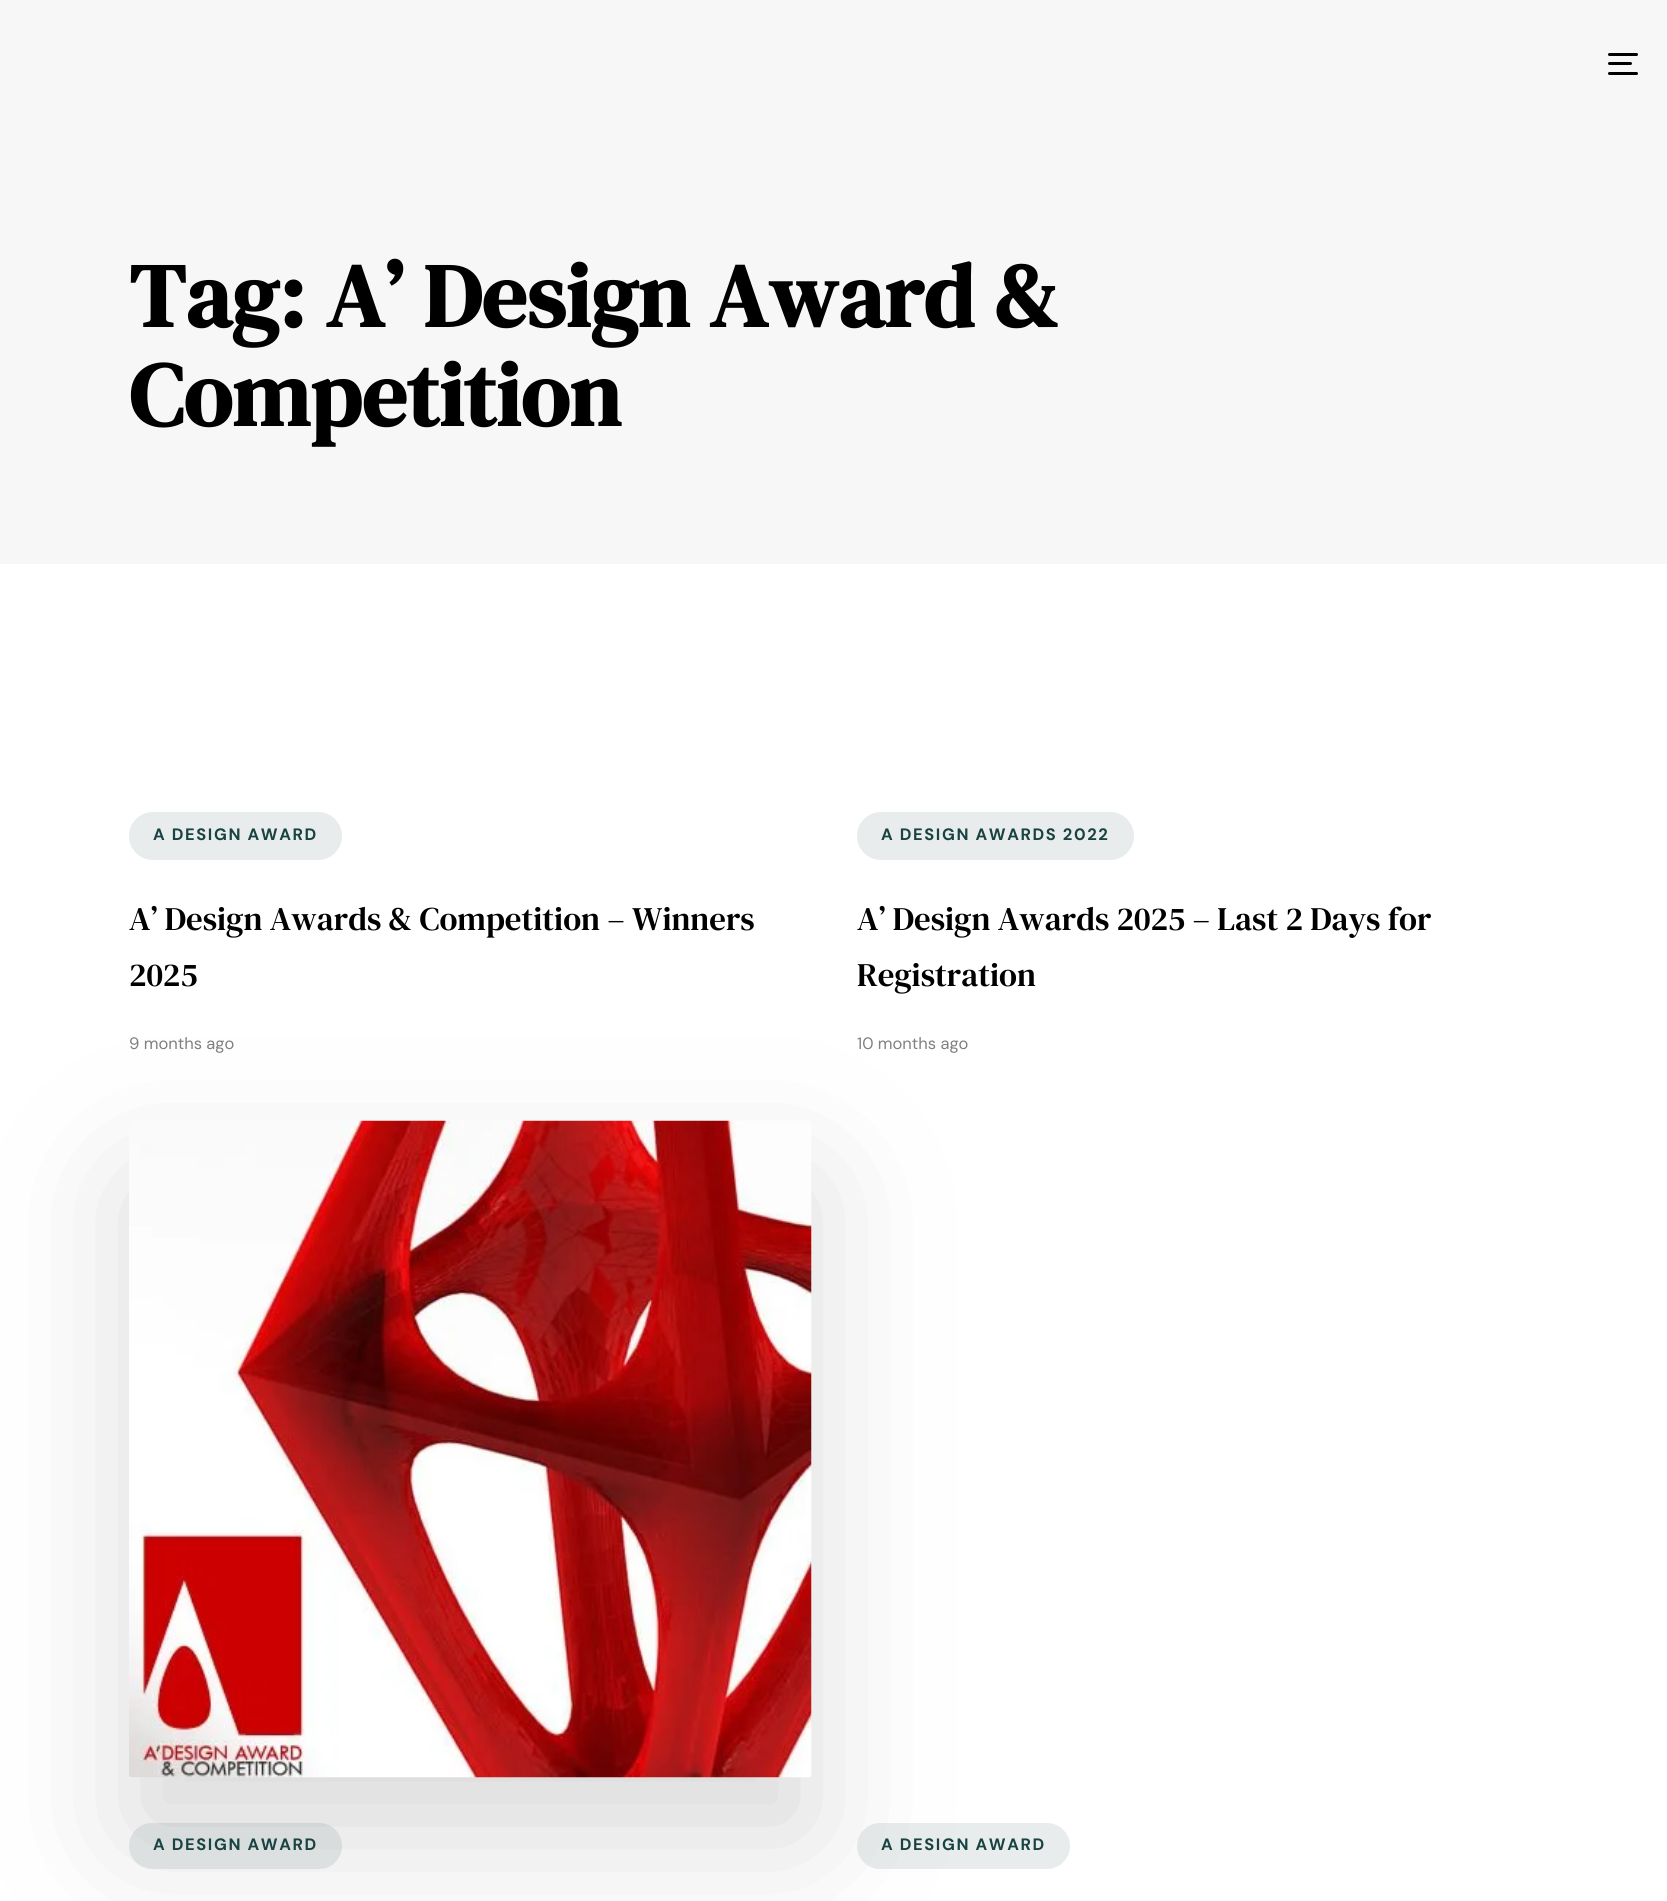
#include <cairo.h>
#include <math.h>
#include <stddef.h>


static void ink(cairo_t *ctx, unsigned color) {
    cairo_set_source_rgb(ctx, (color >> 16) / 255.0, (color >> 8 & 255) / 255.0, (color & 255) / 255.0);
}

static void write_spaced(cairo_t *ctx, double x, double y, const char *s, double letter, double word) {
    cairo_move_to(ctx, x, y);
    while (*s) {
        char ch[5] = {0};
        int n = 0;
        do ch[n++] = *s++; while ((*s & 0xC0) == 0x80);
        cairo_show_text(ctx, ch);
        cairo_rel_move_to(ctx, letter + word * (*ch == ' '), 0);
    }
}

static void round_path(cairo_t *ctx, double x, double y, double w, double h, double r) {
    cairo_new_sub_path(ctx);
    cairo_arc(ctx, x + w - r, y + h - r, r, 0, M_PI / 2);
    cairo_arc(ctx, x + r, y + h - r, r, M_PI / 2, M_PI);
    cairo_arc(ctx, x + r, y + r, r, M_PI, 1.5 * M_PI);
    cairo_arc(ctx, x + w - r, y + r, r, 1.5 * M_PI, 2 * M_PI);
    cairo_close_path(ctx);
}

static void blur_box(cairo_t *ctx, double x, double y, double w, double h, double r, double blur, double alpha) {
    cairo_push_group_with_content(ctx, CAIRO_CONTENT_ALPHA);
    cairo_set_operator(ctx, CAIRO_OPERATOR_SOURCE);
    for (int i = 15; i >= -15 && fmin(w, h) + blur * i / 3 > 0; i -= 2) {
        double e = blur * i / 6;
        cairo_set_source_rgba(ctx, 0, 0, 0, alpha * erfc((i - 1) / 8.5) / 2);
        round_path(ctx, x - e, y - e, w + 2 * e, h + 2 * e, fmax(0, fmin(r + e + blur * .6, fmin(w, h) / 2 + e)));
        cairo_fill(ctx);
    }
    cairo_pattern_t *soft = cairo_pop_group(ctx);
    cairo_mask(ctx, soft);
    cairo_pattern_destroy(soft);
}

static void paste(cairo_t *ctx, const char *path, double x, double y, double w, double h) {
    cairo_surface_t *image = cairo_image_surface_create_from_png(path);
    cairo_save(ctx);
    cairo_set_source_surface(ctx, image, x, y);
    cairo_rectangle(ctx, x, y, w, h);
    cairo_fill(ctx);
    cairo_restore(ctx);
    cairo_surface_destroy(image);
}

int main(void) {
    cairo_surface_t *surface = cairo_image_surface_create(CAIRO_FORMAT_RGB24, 1667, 1901);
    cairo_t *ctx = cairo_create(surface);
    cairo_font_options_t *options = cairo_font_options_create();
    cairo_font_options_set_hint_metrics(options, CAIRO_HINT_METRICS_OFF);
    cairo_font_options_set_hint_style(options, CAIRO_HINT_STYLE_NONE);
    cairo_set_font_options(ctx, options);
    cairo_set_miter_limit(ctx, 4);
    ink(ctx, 0xFFFFFF);
    cairo_paint(ctx);
    ink(ctx, 0xF7F7F7);
    cairo_rectangle(ctx, 0, 0, 1667, 564);
    cairo_fill(ctx);
    ink(ctx, 0x000000);
    round_path(ctx, 1608, 53, 30, 3, 1.5);
    cairo_fill(ctx);
    round_path(ctx, 1608, 62, 24, 3, 1.5);
    cairo_fill(ctx);
    round_path(ctx, 1608, 72, 30, 3, 1.5);
    cairo_fill(ctx);
    cairo_select_font_face(ctx, "DM Serif Text", CAIRO_FONT_SLANT_NORMAL, CAIRO_FONT_WEIGHT_BOLD);
    cairo_set_font_size(ctx, 90);
    cairo_move_to(ctx, 129, 327);
    cairo_show_text(ctx, "Tag: A’ Design Award &");
    cairo_move_to(ctx, 129, 426);
    cairo_show_text(ctx, "Competition");
    ink(ctx, 0xE8ECEC);
    round_path(ctx, 129, 812, 213, 48, 24);
    cairo_fill(ctx);
    cairo_select_font_face(ctx, "DM Sans", CAIRO_FONT_SLANT_NORMAL, CAIRO_FONT_WEIGHT_BOLD);
    cairo_set_font_size(ctx, 16.5);
    ink(ctx, 0x184341);
    write_spaced(ctx, 153, 840, "A DESIGN AWARD", 1.6, 0);
    cairo_select_font_face(ctx, "DM Serif Text", CAIRO_FONT_SLANT_NORMAL, CAIRO_FONT_WEIGHT_NORMAL);
    cairo_set_font_size(ctx, 33);
    ink(ctx, 0x000000);
    cairo_move_to(ctx, 129, 930);
    cairo_show_text(ctx, "A’ Design Awards & Competition – Winners");
    cairo_move_to(ctx, 129, 986);
    cairo_show_text(ctx, "2025");
    cairo_select_font_face(ctx, "DM Sans", CAIRO_FONT_SLANT_NORMAL, CAIRO_FONT_WEIGHT_NORMAL);
    cairo_set_font_size(ctx, 16.5);
    ink(ctx, 0x808080);
    cairo_move_to(ctx, 129, 1049);
    cairo_show_text(ctx, "9 months ago");
    ink(ctx, 0x464343);
    blur_box(ctx, 129, 1181, 683, 657, 3, 67.5, 0.2);
    paste(ctx, "media/1.png", 129, 1120, 683, 658);
    ink(ctx, 0xE8ECEC);
    round_path(ctx, 857, 812, 277, 48, 24);
    cairo_fill(ctx);
    cairo_select_font_face(ctx, "DM Sans", CAIRO_FONT_SLANT_NORMAL, CAIRO_FONT_WEIGHT_BOLD);
    ink(ctx, 0x184341);
    write_spaced(ctx, 881, 840, "A DESIGN AWARDS 2022", 1.6, 0);
    cairo_select_font_face(ctx, "DM Serif Text", CAIRO_FONT_SLANT_NORMAL, CAIRO_FONT_WEIGHT_NORMAL);
    cairo_set_font_size(ctx, 33);
    ink(ctx, 0x000000);
    cairo_move_to(ctx, 857, 930);
    cairo_show_text(ctx, "A’ Design Awards 2025 – Last 2 Days for");
    cairo_move_to(ctx, 857, 986);
    cairo_show_text(ctx, "Registration");
    cairo_select_font_face(ctx, "DM Sans", CAIRO_FONT_SLANT_NORMAL, CAIRO_FONT_WEIGHT_NORMAL);
    cairo_set_font_size(ctx, 16.5);
    ink(ctx, 0x808080);
    cairo_move_to(ctx, 857, 1049);
    cairo_show_text(ctx, "10 months ago");
    cairo_set_source_rgba(ctx, 0.094, 0.263, 0.255, 0.1);
    round_path(ctx, 129, 1823, 213, 46, 23);
    cairo_fill(ctx);
    cairo_select_font_face(ctx, "DM Sans", CAIRO_FONT_SLANT_NORMAL, CAIRO_FONT_WEIGHT_BOLD);
    ink(ctx, 0x184341);
    write_spaced(ctx, 153, 1850, "A DESIGN AWARD", 1.6, 0);
    cairo_set_source_rgba(ctx, 0.094, 0.263, 0.255, 0.1);
    round_path(ctx, 857, 1823, 213, 46, 23);
    cairo_fill(ctx);
    ink(ctx, 0x184341);
    write_spaced(ctx, 881, 1850, "A DESIGN AWARD", 1.6, 0);
    cairo_surface_write_to_png(surface, "image.png");
    cairo_font_options_destroy(options);
    cairo_destroy(ctx);
    cairo_surface_destroy(surface);
    return 0;
}
